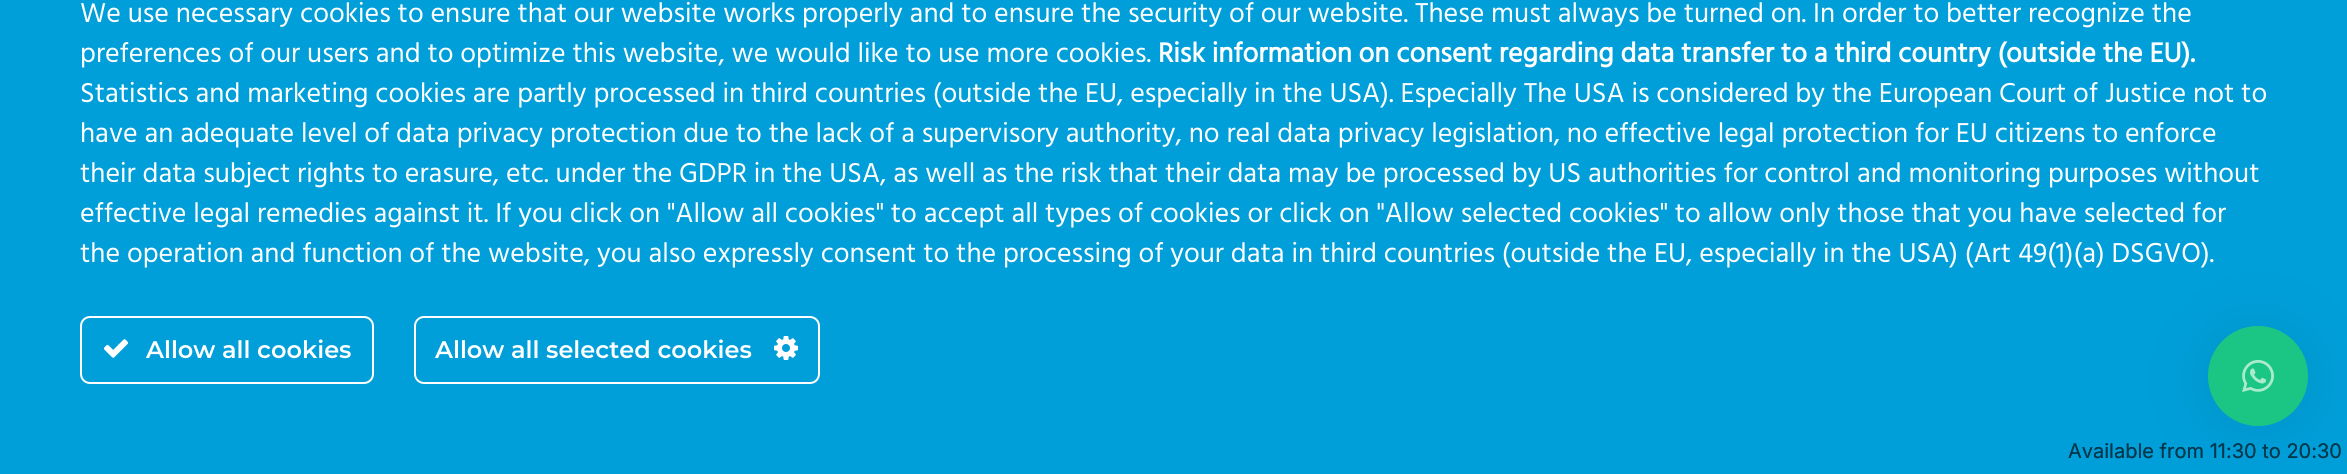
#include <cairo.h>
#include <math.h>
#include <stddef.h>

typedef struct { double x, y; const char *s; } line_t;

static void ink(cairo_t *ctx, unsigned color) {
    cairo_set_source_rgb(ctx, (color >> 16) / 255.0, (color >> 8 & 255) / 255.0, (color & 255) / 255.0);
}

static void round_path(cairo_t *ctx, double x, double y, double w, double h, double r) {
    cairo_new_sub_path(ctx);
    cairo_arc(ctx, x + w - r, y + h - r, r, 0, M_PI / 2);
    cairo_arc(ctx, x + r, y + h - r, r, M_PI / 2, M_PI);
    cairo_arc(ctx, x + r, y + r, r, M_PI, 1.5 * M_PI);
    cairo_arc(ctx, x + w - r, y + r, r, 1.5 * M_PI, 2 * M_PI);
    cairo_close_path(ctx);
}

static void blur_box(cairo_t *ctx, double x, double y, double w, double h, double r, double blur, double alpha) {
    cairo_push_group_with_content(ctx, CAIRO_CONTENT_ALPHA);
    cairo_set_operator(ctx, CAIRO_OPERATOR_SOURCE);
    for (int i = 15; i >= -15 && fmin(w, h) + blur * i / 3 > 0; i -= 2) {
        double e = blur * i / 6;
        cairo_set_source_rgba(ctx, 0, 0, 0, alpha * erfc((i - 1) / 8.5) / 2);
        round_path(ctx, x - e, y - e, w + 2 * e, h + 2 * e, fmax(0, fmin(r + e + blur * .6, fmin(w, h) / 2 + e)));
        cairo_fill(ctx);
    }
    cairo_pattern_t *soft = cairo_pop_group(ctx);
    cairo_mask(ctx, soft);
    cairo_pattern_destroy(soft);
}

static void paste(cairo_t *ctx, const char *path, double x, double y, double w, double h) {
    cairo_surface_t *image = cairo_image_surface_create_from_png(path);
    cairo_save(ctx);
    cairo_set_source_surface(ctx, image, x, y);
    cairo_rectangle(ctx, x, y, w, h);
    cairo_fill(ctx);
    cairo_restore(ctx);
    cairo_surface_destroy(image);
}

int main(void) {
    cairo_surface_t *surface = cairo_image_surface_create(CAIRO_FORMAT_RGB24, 2347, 474);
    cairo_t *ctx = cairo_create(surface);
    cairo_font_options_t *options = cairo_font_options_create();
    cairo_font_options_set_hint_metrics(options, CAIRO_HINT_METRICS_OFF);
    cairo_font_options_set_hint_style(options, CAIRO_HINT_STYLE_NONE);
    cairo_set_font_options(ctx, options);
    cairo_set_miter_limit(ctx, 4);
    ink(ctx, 0x009FDA);
    cairo_paint(ctx);
    cairo_select_font_face(ctx, "Hind", CAIRO_FONT_SLANT_NORMAL, CAIRO_FONT_WEIGHT_NORMAL);
    cairo_set_font_size(ctx, 28);
    ink(ctx, 0xFFFFFF);
    cairo_move_to(ctx, 80, 22);
    cairo_show_text(ctx, "We use necessary cookies to ensure that our website works properly and to ensure the security of our website. These must always be turned on. In order to better recognize the");
    cairo_move_to(ctx, 80, 62);
    cairo_show_text(ctx, "preferences of our users and to optimize this website, we would like to use more cookies.");
    cairo_select_font_face(ctx, "Hind", CAIRO_FONT_SLANT_NORMAL, CAIRO_FONT_WEIGHT_BOLD);
    cairo_move_to(ctx, 1158, 62);
    cairo_show_text(ctx, "Risk information on consent regarding data transfer to a third country (outside the EU).");
    cairo_select_font_face(ctx, "Hind", CAIRO_FONT_SLANT_NORMAL, CAIRO_FONT_WEIGHT_NORMAL);
    {
        static const line_t items[] = {
            {80, 102, "Statistics and marketing cookies are partly processed in third countries (outside the EU, especially in the USA). Especially The USA is considered by the European Court of Justice not to"},
            {80, 142, "have an adequate level of data privacy protection due to the lack of a supervisory authority, no real data privacy legislation, no effective legal protection for EU citizens to enforce"},
            {80, 182, "their data subject rights to erasure, etc. under the GDPR in the USA, as well as the risk that their data may be processed by US authorities for control and monitoring purposes without"},
            {80, 222, "effective legal remedies against it. If you click on \"Allow all cookies\" to accept all types of cookies or click on \"Allow selected cookies\" to allow only those that you have selected for"},
            {80, 262, "the operation and function of the website, you also expressly consent to the processing of your data in third countries (outside the EU, especially in the USA) (Art 49(1)(a) DSGVO)."},
        };
        for (size_t i = 0; i < sizeof items / sizeof *items; i++) {
            cairo_move_to(ctx, items[i].x, items[i].y);
            cairo_show_text(ctx, items[i].s);
        }
    }
    round_path(ctx, 81, 317, 292, 66, 9);
    cairo_stroke(ctx);
    paste(ctx, "media/1.png", 103, 339, 26, 19);
    cairo_select_font_face(ctx, "Montserrat SemiBold", CAIRO_FONT_SLANT_NORMAL, CAIRO_FONT_WEIGHT_NORMAL);
    cairo_set_font_size(ctx, 24);
    cairo_move_to(ctx, 146, 358);
    cairo_show_text(ctx, "Allow all cookies");
    round_path(ctx, 415, 317, 404, 66, 9);
    cairo_stroke(ctx);
    cairo_move_to(ctx, 435, 358);
    cairo_show_text(ctx, "Allow all selected cookies");
    paste(ctx, "media/2.png", 774, 336, 24, 24);
    ink(ctx, 0x00506D);
    blur_box(ctx, 2208, 330, 100, 100, 50, 32, 0.16);
    ink(ctx, 0x13B9A0);
    cairo_arc(ctx, 2258, 376, 50, 0, 2 * M_PI);
    cairo_fill(ctx);
    paste(ctx, "media/3.png", 2242, 360, 32, 32);
    cairo_select_font_face(ctx, "Inter", CAIRO_FONT_SLANT_NORMAL, CAIRO_FONT_WEIGHT_NORMAL);
    cairo_set_font_size(ctx, 20);
    ink(ctx, 0x00506D);
    cairo_move_to(ctx, 2068, 458);
    cairo_show_text(ctx, "Available from 11:30 to 20:30");
    cairo_set_source_rgba(ctx, 0.145, 0.827, 0.4, 0.5);
    cairo_new_path(ctx);
    cairo_arc(ctx, 2258, 376, 50, 0, 2 * M_PI);
    cairo_fill(ctx);
    paste(ctx, "media/4.png", 2242, 360, 32, 32);
    ink(ctx, 0x00374B);
    cairo_move_to(ctx, 2068, 458);
    cairo_show_text(ctx, "Available from 11:30 to 20:30");
    cairo_surface_write_to_png(surface, "image.png");
    cairo_font_options_destroy(options);
    cairo_destroy(ctx);
    cairo_surface_destroy(surface);
    return 0;
}
